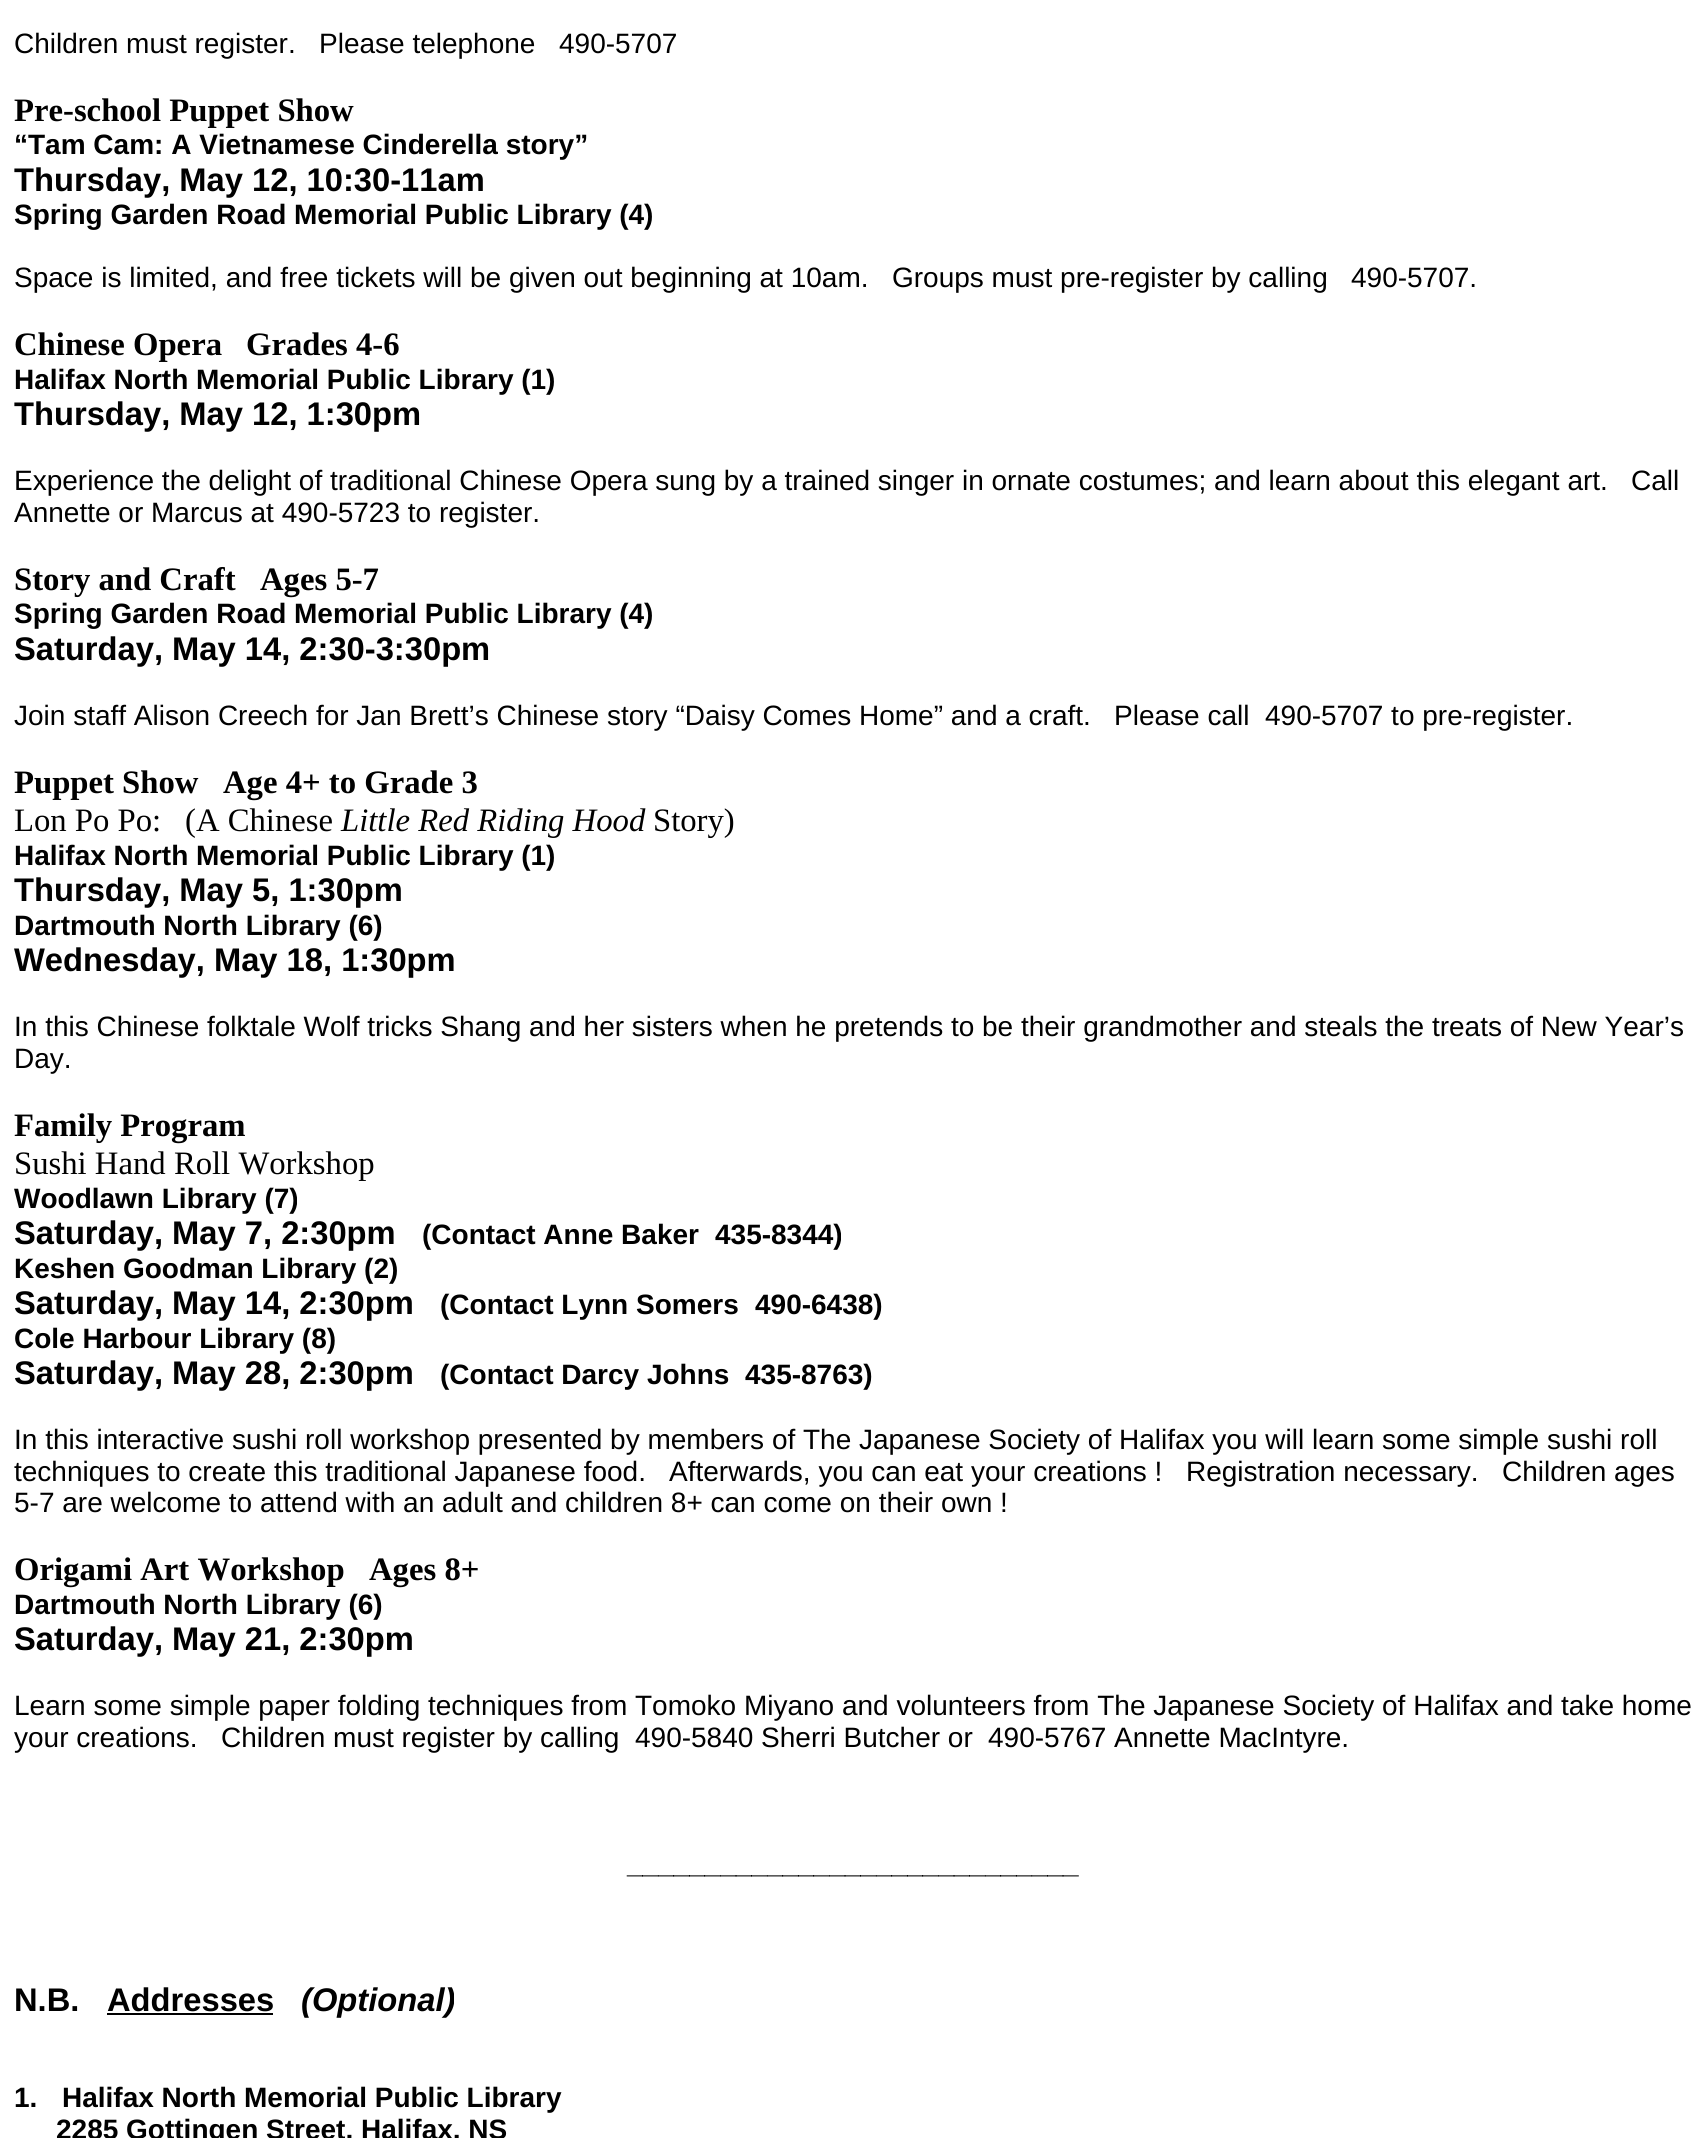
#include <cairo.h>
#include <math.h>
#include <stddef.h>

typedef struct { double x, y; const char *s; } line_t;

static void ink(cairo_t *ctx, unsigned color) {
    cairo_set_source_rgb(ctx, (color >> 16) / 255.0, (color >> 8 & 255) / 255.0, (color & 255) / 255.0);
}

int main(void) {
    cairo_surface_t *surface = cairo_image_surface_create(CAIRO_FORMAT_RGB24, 1706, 2138);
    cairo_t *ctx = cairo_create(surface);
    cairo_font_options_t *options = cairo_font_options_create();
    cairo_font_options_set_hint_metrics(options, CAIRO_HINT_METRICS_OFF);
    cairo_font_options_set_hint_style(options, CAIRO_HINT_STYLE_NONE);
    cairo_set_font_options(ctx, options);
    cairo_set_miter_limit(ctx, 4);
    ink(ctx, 0xFFFFFF);
    cairo_paint(ctx);
    cairo_select_font_face(ctx, "Liberation Sans", CAIRO_FONT_SLANT_NORMAL, CAIRO_FONT_WEIGHT_NORMAL);
    cairo_set_font_size(ctx, 28);
    ink(ctx, 0x000000);
    {
        static const line_t items[] = {
            {14, 53, "Children must register."},
            {319, 53, "Please telephone"},
            {559, 53, "490-5707"},
        };
        for (size_t i = 0; i < sizeof items / sizeof *items; i++) {
            cairo_move_to(ctx, items[i].x, items[i].y);
            cairo_show_text(ctx, items[i].s);
        }
    }
    cairo_select_font_face(ctx, "Liberation Serif", CAIRO_FONT_SLANT_NORMAL, CAIRO_FONT_WEIGHT_BOLD);
    cairo_set_font_size(ctx, 32.7);
    cairo_move_to(ctx, 14, 121);
    cairo_show_text(ctx, "Pre-school Puppet Show");
    cairo_select_font_face(ctx, "Liberation Sans", CAIRO_FONT_SLANT_NORMAL, CAIRO_FONT_WEIGHT_BOLD);
    cairo_set_font_size(ctx, 28);
    cairo_move_to(ctx, 14, 154);
    cairo_show_text(ctx, "“Tam Cam: A Vietnamese Cinderella story”");
    cairo_set_font_size(ctx, 32.7);
    cairo_move_to(ctx, 14, 191);
    cairo_show_text(ctx, "Thursday, May 12, 10:30-11am");
    cairo_set_font_size(ctx, 28);
    cairo_move_to(ctx, 14, 224);
    cairo_show_text(ctx, "Spring Garden Road Memorial Public Library (4)");
    cairo_select_font_face(ctx, "Liberation Sans", CAIRO_FONT_SLANT_NORMAL, CAIRO_FONT_WEIGHT_NORMAL);
    {
        static const line_t items[] = {
            {14, 287, "Space is limited, and free tickets will be given out beginning at 10am."},
            {892, 287, "Groups must pre-register by calling"},
            {1351, 287, "490-5707."},
        };
        for (size_t i = 0; i < sizeof items / sizeof *items; i++) {
            cairo_move_to(ctx, items[i].x, items[i].y);
            cairo_show_text(ctx, items[i].s);
        }
    }
    cairo_select_font_face(ctx, "Liberation Serif", CAIRO_FONT_SLANT_NORMAL, CAIRO_FONT_WEIGHT_BOLD);
    cairo_set_font_size(ctx, 32.7);
    cairo_move_to(ctx, 14, 355);
    cairo_show_text(ctx, "Chinese Opera");
    cairo_move_to(ctx, 246, 355);
    cairo_show_text(ctx, "Grades 4-6");
    cairo_select_font_face(ctx, "Liberation Sans", CAIRO_FONT_SLANT_NORMAL, CAIRO_FONT_WEIGHT_BOLD);
    cairo_set_font_size(ctx, 28);
    cairo_move_to(ctx, 14, 389);
    cairo_show_text(ctx, "Halifax North Memorial Public Library (1)");
    cairo_set_font_size(ctx, 32.7);
    cairo_move_to(ctx, 14, 425);
    cairo_show_text(ctx, "Thursday, May 12, 1:30pm");
    cairo_select_font_face(ctx, "Liberation Sans", CAIRO_FONT_SLANT_NORMAL, CAIRO_FONT_WEIGHT_NORMAL);
    cairo_set_font_size(ctx, 28);
    {
        static const line_t items[] = {
            {14, 490, "Experience the delight of traditional Chinese Opera sung by a trained singer in ornate costumes; and learn about this elegant art."},
            {1631, 490, "Call"},
            {14, 522, "Annette or Marcus at 490-5723 to register."},
        };
        for (size_t i = 0; i < sizeof items / sizeof *items; i++) {
            cairo_move_to(ctx, items[i].x, items[i].y);
            cairo_show_text(ctx, items[i].s);
        }
    }
    cairo_select_font_face(ctx, "Liberation Serif", CAIRO_FONT_SLANT_NORMAL, CAIRO_FONT_WEIGHT_BOLD);
    cairo_set_font_size(ctx, 32.7);
    cairo_move_to(ctx, 14, 590);
    cairo_show_text(ctx, "Story and Craft");
    cairo_move_to(ctx, 260, 590);
    cairo_show_text(ctx, "Ages 5-7");
    cairo_select_font_face(ctx, "Liberation Sans", CAIRO_FONT_SLANT_NORMAL, CAIRO_FONT_WEIGHT_BOLD);
    cairo_set_font_size(ctx, 28);
    cairo_move_to(ctx, 14, 623);
    cairo_show_text(ctx, "Spring Garden Road Memorial Public Library (4)");
    cairo_set_font_size(ctx, 32.7);
    cairo_move_to(ctx, 14, 660);
    cairo_show_text(ctx, "Saturday, May 14, 2:30-3:30pm");
    cairo_select_font_face(ctx, "Liberation Sans", CAIRO_FONT_SLANT_NORMAL, CAIRO_FONT_WEIGHT_NORMAL);
    cairo_set_font_size(ctx, 28);
    {
        static const line_t items[] = {
            {14, 725, "Join staff Alison Creech for Jan Brett’s Chinese story “Daisy Comes Home” and a craft."},
            {1114, 725, "Please call"},
            {1265, 725, "490-5707 to pre-register."},
        };
        for (size_t i = 0; i < sizeof items / sizeof *items; i++) {
            cairo_move_to(ctx, items[i].x, items[i].y);
            cairo_show_text(ctx, items[i].s);
        }
    }
    cairo_select_font_face(ctx, "Liberation Serif", CAIRO_FONT_SLANT_NORMAL, CAIRO_FONT_WEIGHT_BOLD);
    cairo_set_font_size(ctx, 32.7);
    cairo_move_to(ctx, 14, 793);
    cairo_show_text(ctx, "Puppet Show");
    cairo_move_to(ctx, 223, 793);
    cairo_show_text(ctx, "Age 4+ to Grade 3");
    cairo_select_font_face(ctx, "Liberation Serif", CAIRO_FONT_SLANT_NORMAL, CAIRO_FONT_WEIGHT_NORMAL);
    cairo_move_to(ctx, 14, 831);
    cairo_show_text(ctx, "Lon Po Po:");
    cairo_move_to(ctx, 185, 831);
    cairo_show_text(ctx, "(A Chinese");
    cairo_select_font_face(ctx, "Liberation Serif", CAIRO_FONT_SLANT_ITALIC, CAIRO_FONT_WEIGHT_NORMAL);
    cairo_move_to(ctx, 341, 831);
    cairo_show_text(ctx, "Little Red Riding Hood");
    cairo_select_font_face(ctx, "Liberation Serif", CAIRO_FONT_SLANT_NORMAL, CAIRO_FONT_WEIGHT_NORMAL);
    cairo_move_to(ctx, 653, 831);
    cairo_show_text(ctx, "Story)");
    cairo_select_font_face(ctx, "Liberation Sans", CAIRO_FONT_SLANT_NORMAL, CAIRO_FONT_WEIGHT_BOLD);
    cairo_set_font_size(ctx, 28);
    cairo_move_to(ctx, 14, 865);
    cairo_show_text(ctx, "Halifax North Memorial Public Library (1)");
    cairo_set_font_size(ctx, 32.7);
    cairo_move_to(ctx, 14, 901);
    cairo_show_text(ctx, "Thursday, May 5, 1:30pm");
    cairo_set_font_size(ctx, 28);
    cairo_move_to(ctx, 14, 935);
    cairo_show_text(ctx, "Dartmouth North Library (6)");
    cairo_set_font_size(ctx, 32.7);
    cairo_move_to(ctx, 14, 971);
    cairo_show_text(ctx, "Wednesday, May 18, 1:30pm");
    cairo_select_font_face(ctx, "Liberation Sans", CAIRO_FONT_SLANT_NORMAL, CAIRO_FONT_WEIGHT_NORMAL);
    cairo_set_font_size(ctx, 28);
    cairo_move_to(ctx, 14, 1036);
    cairo_show_text(ctx, "In this Chinese folktale Wolf tricks Shang and her sisters when he pretends to be their grandmother and steals the treats of New Year’s");
    cairo_move_to(ctx, 14, 1068);
    cairo_show_text(ctx, "Day.");
    cairo_select_font_face(ctx, "Liberation Serif", CAIRO_FONT_SLANT_NORMAL, CAIRO_FONT_WEIGHT_BOLD);
    cairo_set_font_size(ctx, 32.7);
    cairo_move_to(ctx, 14, 1136);
    cairo_show_text(ctx, "Family Program");
    cairo_select_font_face(ctx, "Liberation Serif", CAIRO_FONT_SLANT_NORMAL, CAIRO_FONT_WEIGHT_NORMAL);
    cairo_move_to(ctx, 14, 1174);
    cairo_show_text(ctx, "Sushi Hand Roll Workshop");
    cairo_select_font_face(ctx, "Liberation Sans", CAIRO_FONT_SLANT_NORMAL, CAIRO_FONT_WEIGHT_BOLD);
    cairo_set_font_size(ctx, 28);
    cairo_move_to(ctx, 14, 1208);
    cairo_show_text(ctx, "Woodlawn Library (7)");
    cairo_set_font_size(ctx, 32.7);
    cairo_move_to(ctx, 14, 1244);
    cairo_show_text(ctx, "Saturday, May 7, 2:30pm");
    cairo_set_font_size(ctx, 28);
    {
        static const line_t items[] = {
            {422, 1244, "(Contact Anne Baker"},
            {715, 1244, "435-8344)"},
            {14, 1278, "Keshen Goodman Library (2)"},
        };
        for (size_t i = 0; i < sizeof items / sizeof *items; i++) {
            cairo_move_to(ctx, items[i].x, items[i].y);
            cairo_show_text(ctx, items[i].s);
        }
    }
    cairo_set_font_size(ctx, 32.7);
    cairo_move_to(ctx, 14, 1314);
    cairo_show_text(ctx, "Saturday, May 14, 2:30pm");
    cairo_set_font_size(ctx, 28);
    {
        static const line_t items[] = {
            {440, 1314, "(Contact Lynn Somers"},
            {755, 1314, "490-6438)"},
            {14, 1348, "Cole Harbour Library (8)"},
        };
        for (size_t i = 0; i < sizeof items / sizeof *items; i++) {
            cairo_move_to(ctx, items[i].x, items[i].y);
            cairo_show_text(ctx, items[i].s);
        }
    }
    cairo_set_font_size(ctx, 32.7);
    cairo_move_to(ctx, 14, 1384);
    cairo_show_text(ctx, "Saturday, May 28, 2:30pm");
    cairo_set_font_size(ctx, 28);
    cairo_move_to(ctx, 440, 1384);
    cairo_show_text(ctx, "(Contact Darcy Johns");
    cairo_move_to(ctx, 745, 1384);
    cairo_show_text(ctx, "435-8763)");
    cairo_select_font_face(ctx, "Liberation Sans", CAIRO_FONT_SLANT_NORMAL, CAIRO_FONT_WEIGHT_NORMAL);
    {
        static const line_t items[] = {
            {14, 1449, "In this interactive sushi roll workshop presented by members of The Japanese Society of Halifax you will learn some simple sushi roll"},
            {14, 1481, "techniques to create this traditional Japanese food."},
            {669, 1481, "Afterwards, you can eat your creations !"},
            {1186, 1481, "Registration necessary."},
            {1502, 1481, "Children ages"},
            {14, 1512, "5-7 are welcome to attend with an adult and children 8+ can come on their own !"},
        };
        for (size_t i = 0; i < sizeof items / sizeof *items; i++) {
            cairo_move_to(ctx, items[i].x, items[i].y);
            cairo_show_text(ctx, items[i].s);
        }
    }
    cairo_select_font_face(ctx, "Liberation Serif", CAIRO_FONT_SLANT_NORMAL, CAIRO_FONT_WEIGHT_BOLD);
    cairo_set_font_size(ctx, 32.7);
    cairo_move_to(ctx, 14, 1580);
    cairo_show_text(ctx, "Origami Art Workshop");
    cairo_move_to(ctx, 369, 1580);
    cairo_show_text(ctx, "Ages 8+");
    cairo_select_font_face(ctx, "Liberation Sans", CAIRO_FONT_SLANT_NORMAL, CAIRO_FONT_WEIGHT_BOLD);
    cairo_set_font_size(ctx, 28);
    cairo_move_to(ctx, 14, 1614);
    cairo_show_text(ctx, "Dartmouth North Library (6)");
    cairo_set_font_size(ctx, 32.7);
    cairo_move_to(ctx, 14, 1650);
    cairo_show_text(ctx, "Saturday, May 21, 2:30pm");
    cairo_select_font_face(ctx, "Liberation Sans", CAIRO_FONT_SLANT_NORMAL, CAIRO_FONT_WEIGHT_NORMAL);
    cairo_set_font_size(ctx, 28);
    {
        static const line_t items[] = {
            {14, 1715, "Learn some simple paper folding techniques from Tomoko Miyano and volunteers from The Japanese Society of Halifax and take home"},
            {14, 1747, "your creations."},
            {221, 1747, "Children must register by calling"},
            {635, 1747, "490-5840 Sherri Butcher or"},
            {988, 1747, "490-5767 Annette MacIntyre."},
        };
        for (size_t i = 0; i < sizeof items / sizeof *items; i++) {
            cairo_move_to(ctx, items[i].x, items[i].y);
            cairo_show_text(ctx, items[i].s);
        }
    }
    cairo_select_font_face(ctx, "Liberation Sans", CAIRO_FONT_SLANT_NORMAL, CAIRO_FONT_WEIGHT_BOLD);
    cairo_move_to(ctx, 627, 1873);
    cairo_show_text(ctx, "_____________________________");
    cairo_set_font_size(ctx, 32.7);
    cairo_move_to(ctx, 14, 2011);
    cairo_show_text(ctx, "N.B.");
    cairo_move_to(ctx, 107, 2011);
    cairo_show_text(ctx, "Addresses");
    cairo_rectangle(ctx, 107, 2013, 166, 2);
    cairo_fill(ctx);
    cairo_select_font_face(ctx, "Liberation Sans", CAIRO_FONT_SLANT_ITALIC, CAIRO_FONT_WEIGHT_BOLD);
    cairo_move_to(ctx, 301, 2011);
    cairo_show_text(ctx, "(Optional)");
    cairo_select_font_face(ctx, "Liberation Sans", CAIRO_FONT_SLANT_NORMAL, CAIRO_FONT_WEIGHT_BOLD);
    cairo_set_font_size(ctx, 28);
    {
        static const line_t items[] = {
            {14, 2107, "1."},
            {62, 2107, "Halifax North Memorial Public Library"},
            {56, 2139, "2285 Gottingen Street, Halifax, NS"},
        };
        for (size_t i = 0; i < sizeof items / sizeof *items; i++) {
            cairo_move_to(ctx, items[i].x, items[i].y);
            cairo_show_text(ctx, items[i].s);
        }
    }
    cairo_surface_write_to_png(surface, "image.png");
    cairo_font_options_destroy(options);
    cairo_destroy(ctx);
    cairo_surface_destroy(surface);
    return 0;
}
